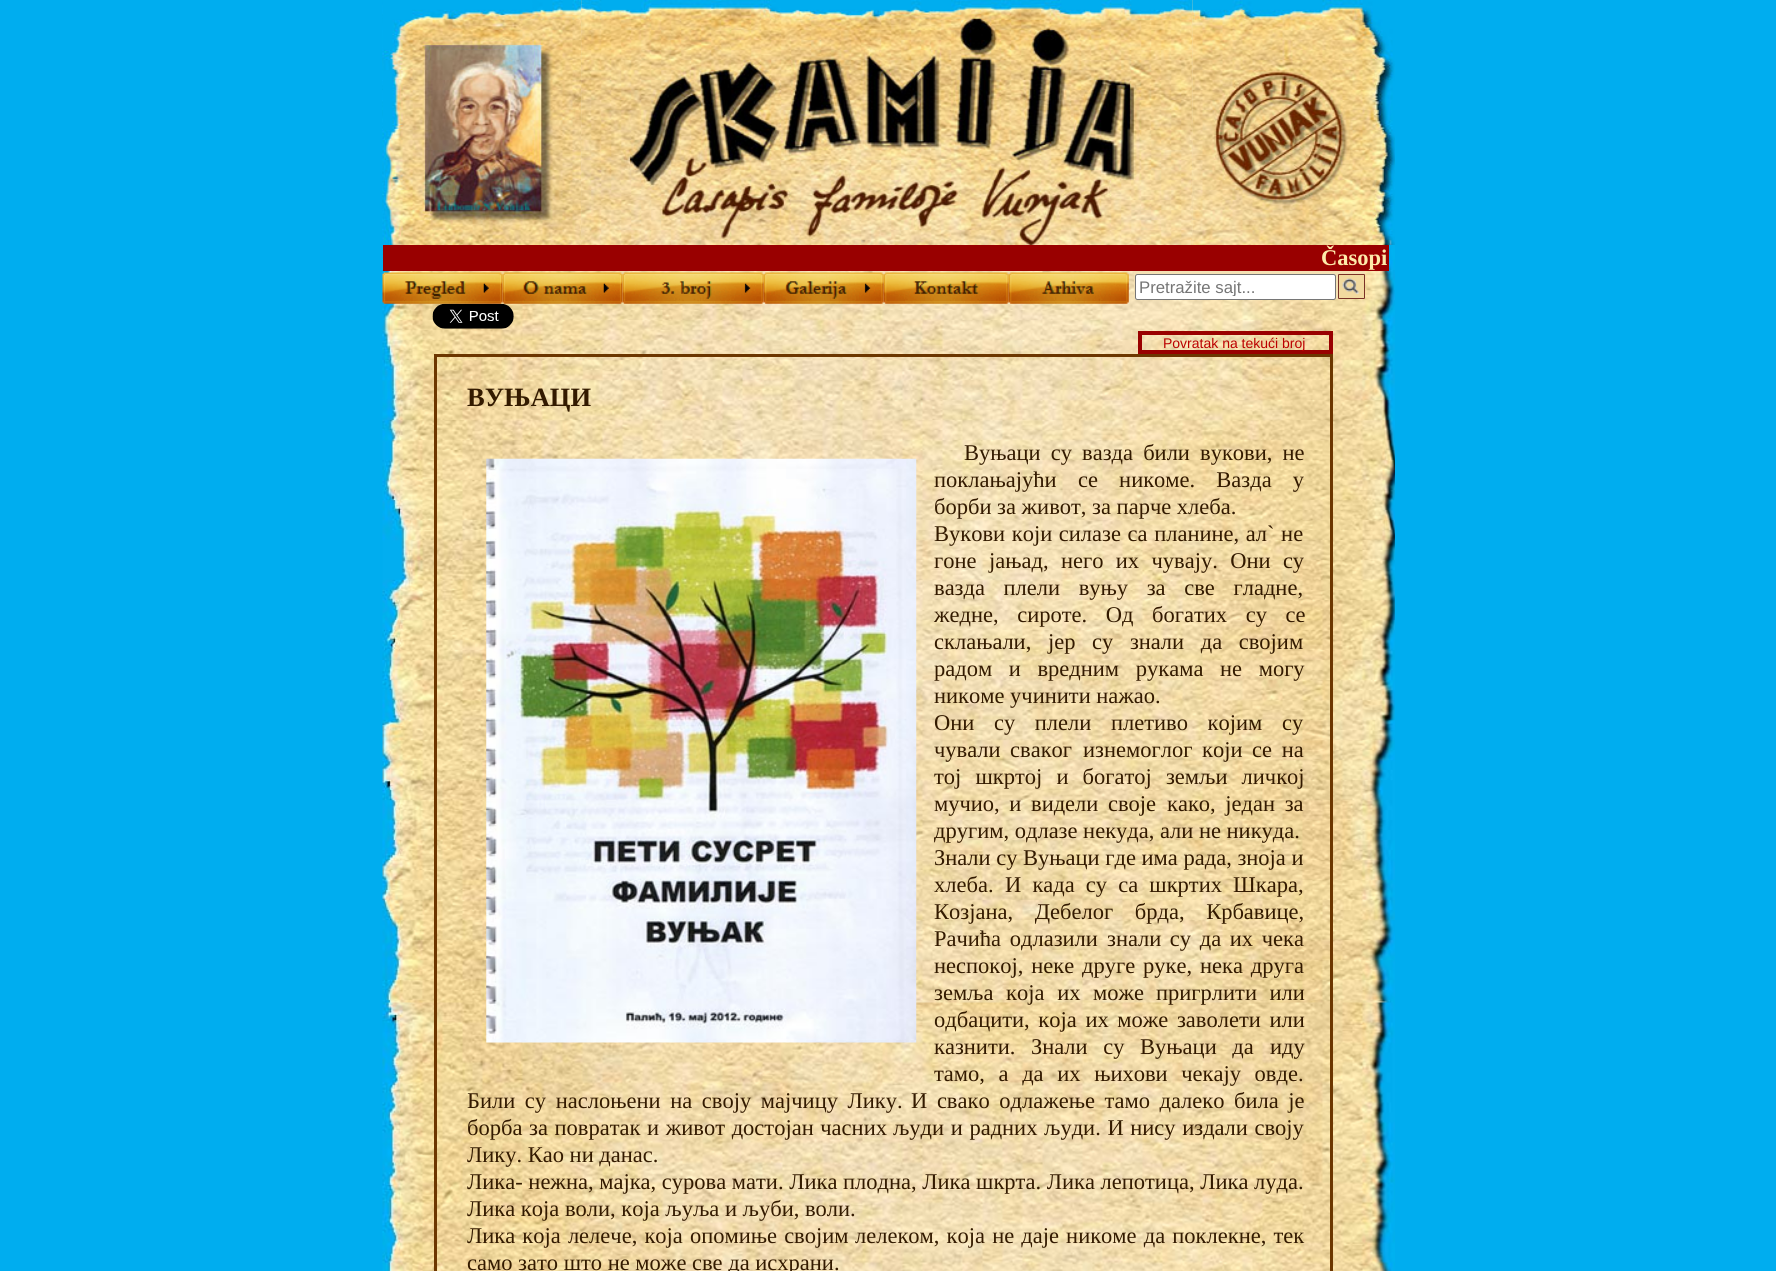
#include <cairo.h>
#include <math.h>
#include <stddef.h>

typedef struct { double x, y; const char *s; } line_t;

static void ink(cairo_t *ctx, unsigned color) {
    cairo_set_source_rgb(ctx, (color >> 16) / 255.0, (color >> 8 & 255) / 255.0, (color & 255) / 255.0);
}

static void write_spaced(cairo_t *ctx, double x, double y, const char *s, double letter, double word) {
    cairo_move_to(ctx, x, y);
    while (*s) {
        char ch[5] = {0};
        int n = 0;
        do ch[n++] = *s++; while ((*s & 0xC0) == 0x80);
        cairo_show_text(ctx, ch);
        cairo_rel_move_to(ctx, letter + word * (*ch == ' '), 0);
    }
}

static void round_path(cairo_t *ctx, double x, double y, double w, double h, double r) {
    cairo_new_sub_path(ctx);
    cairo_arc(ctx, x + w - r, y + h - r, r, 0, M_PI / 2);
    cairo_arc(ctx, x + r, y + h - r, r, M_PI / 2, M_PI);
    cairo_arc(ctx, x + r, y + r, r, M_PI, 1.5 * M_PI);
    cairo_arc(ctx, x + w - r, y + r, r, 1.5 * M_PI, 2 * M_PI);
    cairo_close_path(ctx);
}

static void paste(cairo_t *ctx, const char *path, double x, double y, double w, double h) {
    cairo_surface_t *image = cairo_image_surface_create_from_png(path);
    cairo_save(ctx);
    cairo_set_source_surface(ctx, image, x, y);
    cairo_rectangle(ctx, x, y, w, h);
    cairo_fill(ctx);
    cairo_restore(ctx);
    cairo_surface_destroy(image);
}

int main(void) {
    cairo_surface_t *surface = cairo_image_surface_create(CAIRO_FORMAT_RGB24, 1776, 1271);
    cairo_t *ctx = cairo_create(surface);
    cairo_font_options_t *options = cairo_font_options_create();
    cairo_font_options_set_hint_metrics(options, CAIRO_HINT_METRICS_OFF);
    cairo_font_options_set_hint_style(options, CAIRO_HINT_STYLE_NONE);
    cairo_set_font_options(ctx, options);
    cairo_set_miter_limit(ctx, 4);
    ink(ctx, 0x00ADEF);
    cairo_paint(ctx);
    paste(ctx, "media/1.png", 382, 0, 1013, 1271);
    paste(ctx, "media/2.png", 382, 0, 200, 245);
    paste(ctx, "media/3.png", 581, 0, 612, 245);
    paste(ctx, "media/4.png", 1192, 0, 203, 245);
    ink(ctx, 0x990000);
    cairo_rectangle(ctx, 383, 245, 1006, 26);
    cairo_fill(ctx);
    cairo_select_font_face(ctx, "Liberation Serif", CAIRO_FONT_SLANT_NORMAL, CAIRO_FONT_WEIGHT_BOLD);
    cairo_set_font_size(ctx, 22.5);
    ink(ctx, 0xFEEBAB);
    cairo_move_to(ctx, 1321, 265);
    cairo_show_text(ctx, "Časopi");
    paste(ctx, "media/5.png", 382, 272, 121, 32);
    paste(ctx, "media/6.png", 502, 272, 121, 32);
    paste(ctx, "media/7.png", 622, 272, 142, 32);
    paste(ctx, "media/8.png", 763, 272, 121, 32);
    paste(ctx, "media/9.png", 883, 272, 126, 32);
    paste(ctx, "media/10.png", 1008, 272, 121, 32);
    ink(ctx, 0xF5E1B4);
    cairo_rectangle(ctx, 1134, 271, 231, 28);
    cairo_fill(ctx);
    ink(ctx, 0xFFFFFF);
    round_path(ctx, 1135.5, 274.5, 200, 25, 2);
    cairo_fill_preserve(ctx);
    ink(ctx, 0x767676);
    cairo_set_line_width(ctx, 1);
    cairo_stroke(ctx);
    cairo_save(ctx);
    cairo_rectangle(ctx, 1140, 278, 191, 18);
    cairo_clip(ctx);
    cairo_select_font_face(ctx, "Liberation Sans", CAIRO_FONT_SLANT_NORMAL, CAIRO_FONT_WEIGHT_NORMAL);
    cairo_set_font_size(ctx, 16.75);
    ink(ctx, 0x757575);
    cairo_move_to(ctx, 1139, 293);
    cairo_show_text(ctx, "Pretražite sajt...");
    cairo_restore(ctx);
    ink(ctx, 0xF2DA9F);
    round_path(ctx, 1338.5, 274.5, 26, 24, 0.5);
    cairo_fill_preserve(ctx);
    ink(ctx, 0x793126);
    cairo_stroke(ctx);
    paste(ctx, "media/11.png", 1342, 278, 17, 16);
    paste(ctx, "media/12.png", 432, 303, 82, 26);
    cairo_rectangle(ctx, 1140, 333, 191, 19);
    ink(ctx, 0x990000);
    cairo_set_line_width(ctx, 4);
    cairo_stroke(ctx);
    cairo_select_font_face(ctx, "Liberation Sans", CAIRO_FONT_SLANT_NORMAL, CAIRO_FONT_WEIGHT_NORMAL);
    cairo_set_font_size(ctx, 14);
    ink(ctx, 0xBB0000);
    cairo_move_to(ctx, 1163, 348);
    cairo_show_text(ctx, "Povratak na tekući broj");
    cairo_rectangle(ctx, 435.5, 355.5, 896, 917);
    ink(ctx, 0x6C3600);
    cairo_set_line_width(ctx, 3);
    cairo_stroke(ctx);
    cairo_select_font_face(ctx, "Liberation Serif", CAIRO_FONT_SLANT_NORMAL, CAIRO_FONT_WEIGHT_BOLD);
    cairo_set_font_size(ctx, 26.5);
    ink(ctx, 0x331A00);
    cairo_move_to(ctx, 467, 406);
    cairo_show_text(ctx, "ВУЊАЦИ");
    cairo_select_font_face(ctx, "Liberation Serif", CAIRO_FONT_SLANT_NORMAL, CAIRO_FONT_WEIGHT_NORMAL);
    cairo_set_font_size(ctx, 22.5);
    write_spaced(ctx, 964, 460, "Вуњаци су вазда били вукови, не", 0, 4.5);
    cairo_move_to(ctx, 934, 487);
    cairo_show_text(ctx, "поклањајући");
    write_spaced(ctx, 1078, 487, "се никоме. Вазда у", 0, 15.5);
    cairo_move_to(ctx, 934, 514);
    cairo_show_text(ctx, "борби за живот, за парче хлеба.");
    write_spaced(ctx, 934, 541, "Вукови који силазе са планине, ал` не", 0, 1);
    cairo_move_to(ctx, 934, 568);
    cairo_show_text(ctx, "гоне");
    write_spaced(ctx, 989, 568, "јањад, него их чувају. Они су", 0, 6.75);
    {
        static const line_t items[] = {
            {934, 595, "вазда плели вуњу за све гладне,"},
            {934, 622, "жедне, сироте. Од"},
            {1152, 622, "богатих су се"},
        };
        for (size_t i = 0; i < sizeof items / sizeof *items; i++) {
            write_spaced(ctx, items[i].x, items[i].y, items[i].s, 0, 13);
        }
    }
    write_spaced(ctx, 934, 649, "склањали, јер су знали да својим", 0, 11);
    write_spaced(ctx, 934, 676, "радом и вредним рукама не могу", 0, 11);
    cairo_move_to(ctx, 934, 703);
    cairo_show_text(ctx, "никоме учинити нажао.");
    write_spaced(ctx, 934, 730, "Они су плели плетиво којим су", 0, 14);
    write_spaced(ctx, 934, 757, "чували сваког", 0, 4);
    write_spaced(ctx, 1083, 757, "изнемоглог који се на", 0, 4);
    write_spaced(ctx, 934, 784, "тој шкртој и богатој земљи личкој", 0, 8.5);
    write_spaced(ctx, 934, 811, "мучио, и видели своје", 0, 4);
    write_spaced(ctx, 1167, 811, "како, један за", 0, 4);
    {
        static const line_t items[] = {
            {934, 838, "другим, одлазе некуда, али не никуда."},
            {934, 865, "Знали су Вуњаци где има рада, зноја и"},
            {934, 892, "хлеба."},
        };
        for (size_t i = 0; i < sizeof items / sizeof *items; i++) {
            cairo_move_to(ctx, items[i].x, items[i].y);
            cairo_show_text(ctx, items[i].s);
        }
    }
    write_spaced(ctx, 1005, 892, "И када су са шкртих Шкара,", 0, 5.5);
    write_spaced(ctx, 934, 919, "Козјана, Дебелог брда, Крбавице,", 0, 16);
    write_spaced(ctx, 934, 946, "Рачића одлазили", 0, 3);
    write_spaced(ctx, 1107, 946, "знали су да их чека", 0, 3);
    write_spaced(ctx, 934, 973, "неспокој, неке друге руке, нека друга", 0, 2.25);
    write_spaced(ctx, 934, 1000, "земља која их може", 0, 7);
    write_spaced(ctx, 1156, 1000, "пригрлити или", 0, 7);
    write_spaced(ctx, 934, 1027, "одбацити, која их може заволети или", 0, 3);
    write_spaced(ctx, 934, 1054, "казнити. Знали су Вуњаци да", 0, 10);
    cairo_move_to(ctx, 1270, 1054);
    cairo_show_text(ctx, "иду");
    write_spaced(ctx, 934, 1081, "тамо, а да их њихови чекају овде.", 0, 8);
    write_spaced(ctx, 467, 1108, "Били су наслоњени на своју мајчицу Лику.", 0, 4);
    write_spaced(ctx, 911, 1108, "И свако одлажење тамо далеко била је", 0, 4);
    write_spaced(ctx, 467, 1135, "борба за повратак и живот достојан часних", 0, 1);
    write_spaced(ctx, 893, 1135, "људи и радних људи. И нису издали своју", 0, 1);
    {
        static const line_t items[] = {
            {467, 1162, "Лику. Као ни данас."},
            {467, 1189, "Лика- нежна, мајка, сурова мати. Лика плодна, Лика шкрта. Лика лепотица, Лика луда."},
            {467, 1216, "Лика која воли, која љуља и љуби, воли."},
        };
        for (size_t i = 0; i < sizeof items / sizeof *items; i++) {
            cairo_move_to(ctx, items[i].x, items[i].y);
            cairo_show_text(ctx, items[i].s);
        }
    }
    write_spaced(ctx, 467, 1243, "Лика која лелече, која опомиње својим", 0, 1.5);
    write_spaced(ctx, 855, 1243, "лелеком, која не даје никоме да поклекне, тек", 0, 1.5);
    cairo_move_to(ctx, 467, 1270);
    cairo_show_text(ctx, "само зато што не може све да исхрани.");
    paste(ctx, "media/13.png", 486, 458, 431, 585);
    cairo_surface_write_to_png(surface, "image.png");
    cairo_font_options_destroy(options);
    cairo_destroy(ctx);
    cairo_surface_destroy(surface);
    return 0;
}
